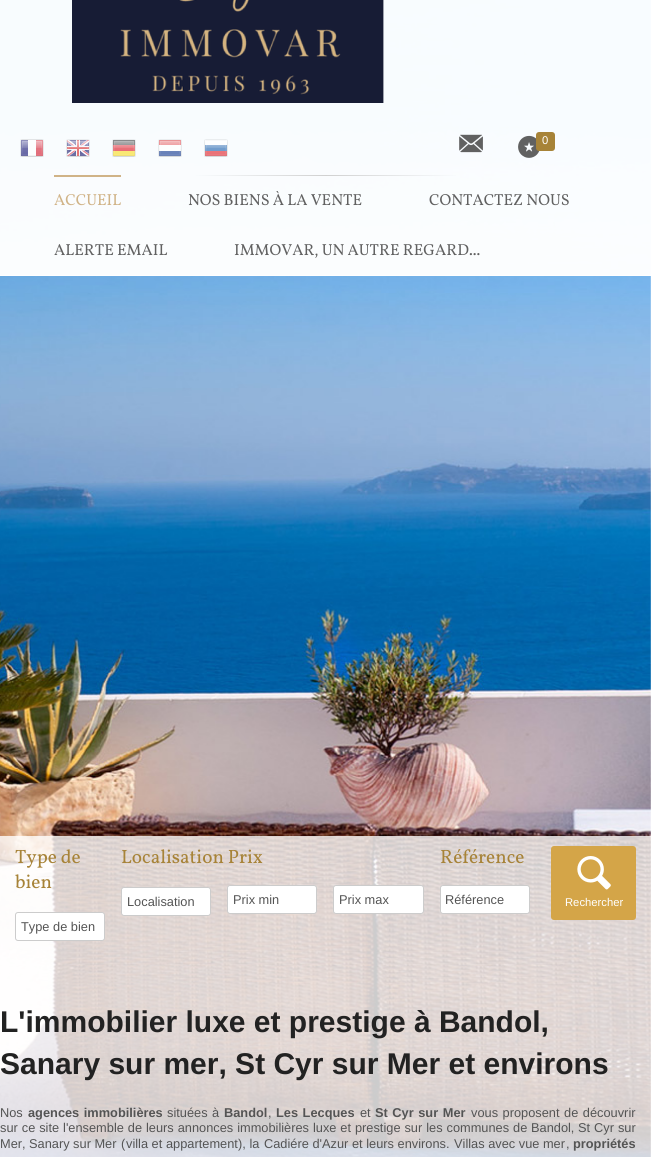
#include <cairo.h>
#include <math.h>
#include <stddef.h>

typedef struct { double x, y; const char *s; } line_t;

static void ink(cairo_t *ctx, unsigned color) {
    cairo_set_source_rgb(ctx, (color >> 16) / 255.0, (color >> 8 & 255) / 255.0, (color & 255) / 255.0);
}

static void write_spaced(cairo_t *ctx, double x, double y, const char *s, double letter, double word) {
    cairo_move_to(ctx, x, y);
    while (*s) {
        char ch[5] = {0};
        int n = 0;
        do ch[n++] = *s++; while ((*s & 0xC0) == 0x80);
        cairo_show_text(ctx, ch);
        cairo_rel_move_to(ctx, letter + word * (*ch == ' '), 0);
    }
}

static void round_path(cairo_t *ctx, double x, double y, double w, double h, double r) {
    cairo_new_sub_path(ctx);
    cairo_arc(ctx, x + w - r, y + h - r, r, 0, M_PI / 2);
    cairo_arc(ctx, x + r, y + h - r, r, M_PI / 2, M_PI);
    cairo_arc(ctx, x + r, y + r, r, M_PI, 1.5 * M_PI);
    cairo_arc(ctx, x + w - r, y + r, r, 1.5 * M_PI, 2 * M_PI);
    cairo_close_path(ctx);
}

static void paste(cairo_t *ctx, const char *path, double x, double y, double w, double h) {
    cairo_surface_t *image = cairo_image_surface_create_from_png(path);
    cairo_save(ctx);
    cairo_set_source_surface(ctx, image, x, y);
    cairo_rectangle(ctx, x, y, w, h);
    cairo_fill(ctx);
    cairo_restore(ctx);
    cairo_surface_destroy(image);
}

int main(void) {
    cairo_surface_t *surface = cairo_image_surface_create(CAIRO_FORMAT_RGB24, 651, 1157);
    cairo_t *ctx = cairo_create(surface);
    cairo_font_options_t *options = cairo_font_options_create();
    cairo_font_options_set_hint_metrics(options, CAIRO_HINT_METRICS_OFF);
    cairo_font_options_set_hint_style(options, CAIRO_HINT_STYLE_NONE);
    cairo_set_font_options(ctx, options);
    cairo_set_miter_limit(ctx, 4);
    cairo_pattern_t *gradient;
    ink(ctx, 0xFFFFFF);
    cairo_paint(ctx);
    paste(ctx, "media/1.png", 0, 0, 651, 1157);
    cairo_set_source_rgba(ctx, 1, 1, 1, 0.97);
    cairo_rectangle(ctx, 0, 0, 651, 275);
    cairo_fill(ctx);
    ink(ctx, 0xFFFFFF);
    cairo_rectangle(ctx, 0, 275, 651, 1);
    cairo_fill(ctx);
    paste(ctx, "media/2.png", 72, 0, 312, 103);
    paste(ctx, "media/3.png", 20, 139, 24, 18);
    paste(ctx, "media/4.png", 66, 139, 24, 18);
    paste(ctx, "media/5.png", 112, 139, 24, 18);
    paste(ctx, "media/6.png", 158, 139, 24, 18);
    paste(ctx, "media/7.png", 204, 139, 24, 18);
    paste(ctx, "media/8.png", 459, 134, 24, 19);
    paste(ctx, "media/9.png", 518, 135, 22, 23);
    ink(ctx, 0xA78338);
    round_path(ctx, 536, 132, 19, 19, 3);
    cairo_fill(ctx);
    cairo_select_font_face(ctx, "Liberation Sans", CAIRO_FONT_SLANT_NORMAL, CAIRO_FONT_WEIGHT_NORMAL);
    cairo_set_font_size(ctx, 11.25);
    ink(ctx, 0xFFFFFF);
    cairo_move_to(ctx, 542, 144);
    cairo_show_text(ctx, "0");
    gradient = cairo_pattern_create_radial(326, 176, 0, 326, 176, 131);
    cairo_pattern_add_color_stop_rgba(gradient, 0, 0.816, 0.816, 0.816, 1);
    cairo_pattern_add_color_stop_rgba(gradient, 1, 0.976, 0.988, 0.996, 1);
    cairo_set_source(ctx, gradient);
    cairo_pattern_destroy(gradient);
    cairo_rectangle(ctx, 195, 175, 261, 1);
    cairo_fill(ctx);
    ink(ctx, 0xD0B387);
    cairo_rectangle(ctx, 54, 175, 67, 2);
    cairo_fill(ctx);
    cairo_select_font_face(ctx, "Vollkorn", CAIRO_FONT_SLANT_NORMAL, CAIRO_FONT_WEIGHT_NORMAL);
    cairo_set_font_size(ctx, 16);
    cairo_move_to(ctx, 54, 205);
    cairo_show_text(ctx, "ACCUEIL");
    ink(ctx, 0x616161);
    {
        static const line_t items[] = {
            {188, 205, "NOS BIENS À LA VENTE"},
            {429, 205, "CONTACTEZ NOUS"},
            {54, 255, "ALERTE EMAIL"},
            {234, 255, "IMMOVAR, UN AUTRE REGARD..."},
        };
        for (size_t i = 0; i < sizeof items / sizeof *items; i++) {
            cairo_move_to(ctx, items[i].x, items[i].y);
            cairo_show_text(ctx, items[i].s);
        }
    }
    cairo_set_source_rgba(ctx, 1, 1, 1, 0.8);
    cairo_rectangle(ctx, 0, 836, 651, 121);
    cairo_fill(ctx);
    cairo_set_font_size(ctx, 19.25);
    ink(ctx, 0xA78338);
    cairo_move_to(ctx, 15, 863);
    cairo_show_text(ctx, "Type de");
    cairo_move_to(ctx, 15, 888);
    cairo_show_text(ctx, "bien");
    ink(ctx, 0xFFFFFF);
    round_path(ctx, 15.5, 912.5, 89, 28, 2.5);
    cairo_fill_preserve(ctx);
    ink(ctx, 0xCCCCCC);
    cairo_set_line_width(ctx, 1);
    cairo_stroke(ctx);
    cairo_select_font_face(ctx, "Liberation Sans", CAIRO_FONT_SLANT_NORMAL, CAIRO_FONT_WEIGHT_NORMAL);
    cairo_set_font_size(ctx, 12.8);
    ink(ctx, 0x545454);
    cairo_move_to(ctx, 21, 931);
    cairo_show_text(ctx, "Type de bien");
    cairo_select_font_face(ctx, "Vollkorn", CAIRO_FONT_SLANT_NORMAL, CAIRO_FONT_WEIGHT_NORMAL);
    cairo_set_font_size(ctx, 19.25);
    ink(ctx, 0xA78338);
    cairo_move_to(ctx, 121, 863);
    cairo_show_text(ctx, "Localisation Prix");
    ink(ctx, 0xFFFFFF);
    round_path(ctx, 121.5, 887.5, 89, 28, 2.5);
    cairo_fill_preserve(ctx);
    ink(ctx, 0xCCCCCC);
    cairo_stroke(ctx);
    cairo_select_font_face(ctx, "Liberation Sans", CAIRO_FONT_SLANT_NORMAL, CAIRO_FONT_WEIGHT_NORMAL);
    cairo_set_font_size(ctx, 12.8);
    ink(ctx, 0x545454);
    cairo_move_to(ctx, 127, 906);
    cairo_show_text(ctx, "Localisation");
    cairo_select_font_face(ctx, "Vollkorn", CAIRO_FONT_SLANT_NORMAL, CAIRO_FONT_WEIGHT_NORMAL);
    cairo_set_font_size(ctx, 19.25);
    ink(ctx, 0xA78338);
    cairo_move_to(ctx, 440, 863);
    cairo_show_text(ctx, "Référence");
    ink(ctx, 0xFFFFFF);
    round_path(ctx, 440.5, 885.5, 89, 28, 2.5);
    cairo_fill_preserve(ctx);
    ink(ctx, 0xCCCCCC);
    cairo_stroke(ctx);
    cairo_select_font_face(ctx, "Liberation Sans", CAIRO_FONT_SLANT_NORMAL, CAIRO_FONT_WEIGHT_NORMAL);
    cairo_set_font_size(ctx, 12.8);
    ink(ctx, 0x545454);
    cairo_move_to(ctx, 445, 904);
    cairo_show_text(ctx, "Référence");
    ink(ctx, 0xFFFFFF);
    round_path(ctx, 227.5, 885.5, 89, 28, 2.5);
    cairo_fill_preserve(ctx);
    ink(ctx, 0xCCCCCC);
    cairo_stroke(ctx);
    ink(ctx, 0x545454);
    cairo_move_to(ctx, 233, 904);
    cairo_show_text(ctx, "Prix min");
    ink(ctx, 0xFFFFFF);
    round_path(ctx, 333.5, 885.5, 90, 28, 2.5);
    cairo_fill_preserve(ctx);
    ink(ctx, 0xCCCCCC);
    cairo_stroke(ctx);
    ink(ctx, 0x545454);
    cairo_move_to(ctx, 339, 904);
    cairo_show_text(ctx, "Prix max");
    ink(ctx, 0xD4A548);
    round_path(ctx, 551, 846, 85, 74, 3);
    cairo_fill(ctx);
    paste(ctx, "media/10.png", 577, 856, 34, 34);
    cairo_set_font_size(ctx, 11.25);
    ink(ctx, 0xFFFFFF);
    cairo_move_to(ctx, 565, 906);
    cairo_show_text(ctx, "Rechercher");
    cairo_set_source_rgba(ctx, 1, 1, 1, 0.8);
    cairo_rectangle(ctx, 0, 957, 651, 200);
    cairo_fill(ctx);
    cairo_select_font_face(ctx, "Liberation Sans", CAIRO_FONT_SLANT_NORMAL, CAIRO_FONT_WEIGHT_BOLD);
    cairo_set_font_size(ctx, 30);
    ink(ctx, 0x222222);
    cairo_move_to(ctx, 0, 1032);
    cairo_show_text(ctx, "L'immobilier luxe et prestige à Bandol,");
    cairo_move_to(ctx, 0, 1074);
    cairo_show_text(ctx, "Sanary sur mer, St Cyr sur Mer et environs");
    cairo_select_font_face(ctx, "Liberation Sans", CAIRO_FONT_SLANT_NORMAL, CAIRO_FONT_WEIGHT_NORMAL);
    cairo_set_font_size(ctx, 12.8);
    ink(ctx, 0x545454);
    cairo_move_to(ctx, 0, 1117);
    cairo_show_text(ctx, "Nos");
    cairo_select_font_face(ctx, "Liberation Sans", CAIRO_FONT_SLANT_NORMAL, CAIRO_FONT_WEIGHT_BOLD);
    write_spaced(ctx, 28, 1117, "agences immobilières", 0, 1);
    cairo_select_font_face(ctx, "Liberation Sans", CAIRO_FONT_SLANT_NORMAL, CAIRO_FONT_WEIGHT_NORMAL);
    write_spaced(ctx, 167, 1117, "situées à", 0, 1);
    cairo_select_font_face(ctx, "Liberation Sans", CAIRO_FONT_SLANT_NORMAL, CAIRO_FONT_WEIGHT_BOLD);
    cairo_move_to(ctx, 224, 1117);
    cairo_show_text(ctx, "Bandol");
    cairo_select_font_face(ctx, "Liberation Sans", CAIRO_FONT_SLANT_NORMAL, CAIRO_FONT_WEIGHT_NORMAL);
    cairo_move_to(ctx, 268, 1117);
    cairo_show_text(ctx, ",");
    cairo_select_font_face(ctx, "Liberation Sans", CAIRO_FONT_SLANT_NORMAL, CAIRO_FONT_WEIGHT_BOLD);
    write_spaced(ctx, 276, 1117, "Les Lecques", 0, 1);
    cairo_select_font_face(ctx, "Liberation Sans", CAIRO_FONT_SLANT_NORMAL, CAIRO_FONT_WEIGHT_NORMAL);
    cairo_move_to(ctx, 360, 1117);
    cairo_show_text(ctx, "et");
    cairo_select_font_face(ctx, "Liberation Sans", CAIRO_FONT_SLANT_NORMAL, CAIRO_FONT_WEIGHT_BOLD);
    write_spaced(ctx, 375, 1117, "St Cyr sur Mer", 0, 1);
    cairo_select_font_face(ctx, "Liberation Sans", CAIRO_FONT_SLANT_NORMAL, CAIRO_FONT_WEIGHT_NORMAL);
    write_spaced(ctx, 471, 1117, "vous proposent de découvrir", 0, 1);
    write_spaced(ctx, 0, 1132, "sur ce site l'ensemble de leurs annonces immobilières luxe et prestige sur les communes de", 0, 0.4);
    cairo_move_to(ctx, 531, 1132);
    cairo_show_text(ctx, "Bandol,");
    write_spaced(ctx, 578, 1132, "St Cyr sur", 0, 0.4);
    {
        static const line_t items[] = {
            {0, 1148, "Mer,"},
            {29, 1148, "Sanary sur Mer"},
            {121, 1148, "("},
            {126, 1148, "villa et"},
            {166, 1148, "appartement"},
            {238, 1148, "), la"},
            {264, 1148, "Cadiére d'Azur"},
            {352, 1148, "et leurs environs."},
            {454, 1148, "Villas avec vue mer"},
            {566, 1148, ","},
        };
        for (size_t i = 0; i < sizeof items / sizeof *items; i++) {
            cairo_move_to(ctx, items[i].x, items[i].y);
            cairo_show_text(ctx, items[i].s);
        }
    }
    cairo_select_font_face(ctx, "Liberation Sans", CAIRO_FONT_SLANT_NORMAL, CAIRO_FONT_WEIGHT_BOLD);
    cairo_move_to(ctx, 573, 1148);
    cairo_show_text(ctx, "propriétés");
    cairo_surface_write_to_png(surface, "image.png");
    cairo_font_options_destroy(options);
    cairo_destroy(ctx);
    cairo_surface_destroy(surface);
    return 0;
}
